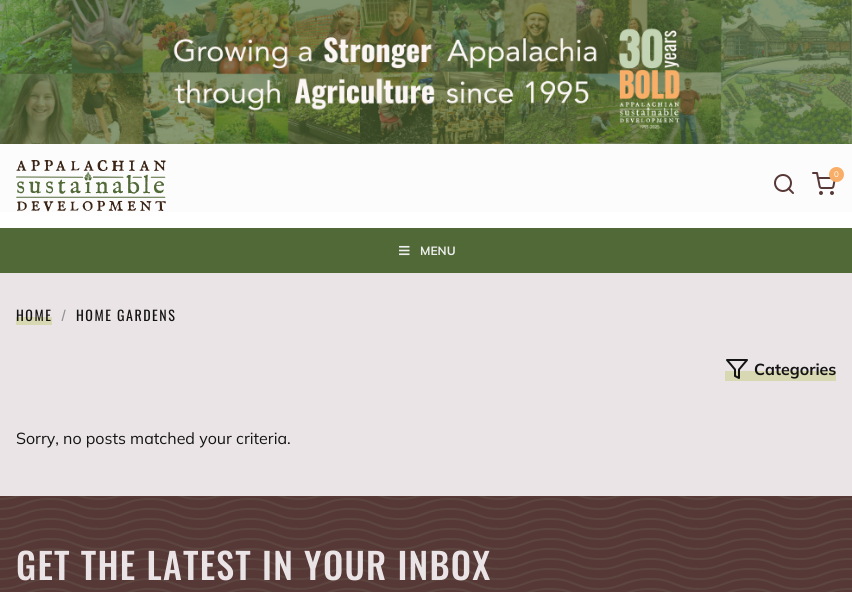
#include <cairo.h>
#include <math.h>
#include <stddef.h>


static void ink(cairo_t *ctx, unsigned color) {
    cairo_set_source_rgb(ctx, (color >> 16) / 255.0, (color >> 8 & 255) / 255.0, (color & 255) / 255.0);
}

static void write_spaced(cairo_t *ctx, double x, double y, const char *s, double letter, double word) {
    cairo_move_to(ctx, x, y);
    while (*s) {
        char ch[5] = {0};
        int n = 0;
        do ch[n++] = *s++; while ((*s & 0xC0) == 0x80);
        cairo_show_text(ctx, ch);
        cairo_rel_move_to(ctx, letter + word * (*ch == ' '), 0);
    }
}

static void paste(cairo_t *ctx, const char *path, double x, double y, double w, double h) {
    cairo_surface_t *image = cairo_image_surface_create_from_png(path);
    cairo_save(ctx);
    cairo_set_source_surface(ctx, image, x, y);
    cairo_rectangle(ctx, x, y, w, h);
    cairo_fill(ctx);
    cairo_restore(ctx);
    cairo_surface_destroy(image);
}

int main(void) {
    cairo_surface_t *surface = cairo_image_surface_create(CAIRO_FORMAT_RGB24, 852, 592);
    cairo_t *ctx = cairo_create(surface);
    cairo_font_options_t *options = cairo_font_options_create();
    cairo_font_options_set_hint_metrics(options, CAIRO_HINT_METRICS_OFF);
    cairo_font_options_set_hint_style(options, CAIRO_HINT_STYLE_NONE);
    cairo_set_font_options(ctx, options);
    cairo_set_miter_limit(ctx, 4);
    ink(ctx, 0xEBE4E6);
    cairo_paint(ctx);
    paste(ctx, "media/1.png", 0, 0, 852, 144);
    ink(ctx, 0xFDFCFD);
    cairo_rectangle(ctx, 0, 144, 852, 68);
    cairo_fill(ctx);
    paste(ctx, "media/2.png", 16, 160, 150, 52);
    cairo_arc(ctx, 783, 183, 8, 0, 2 * M_PI);
    ink(ctx, 0x563836);
    cairo_stroke(ctx);
    cairo_new_path(ctx);
    cairo_move_to(ctx, 793, 193);
    cairo_line_to(ctx, 788.5, 188.5);
    cairo_set_line_cap(ctx, CAIRO_LINE_CAP_ROUND);
    cairo_set_line_join(ctx, CAIRO_LINE_JOIN_ROUND);
    cairo_stroke(ctx);
    paste(ctx, "media/3.png", 812, 172, 24, 23);
    ink(ctx, 0xF8AE67);
    cairo_arc(ctx, 836.5, 174.5, 7.5, 0, 2 * M_PI);
    cairo_fill(ctx);
    cairo_select_font_face(ctx, "Mulish", CAIRO_FONT_SLANT_NORMAL, CAIRO_FONT_WEIGHT_NORMAL);
    cairo_set_font_size(ctx, 8);
    ink(ctx, 0xFFFFFF);
    cairo_move_to(ctx, 834, 177);
    cairo_show_text(ctx, "0");
    cairo_rectangle(ctx, 0, 212, 852, 16);
    cairo_fill(ctx);
    ink(ctx, 0x516936);
    cairo_rectangle(ctx, 0, 228, 852, 45);
    cairo_fill(ctx);
    paste(ctx, "media/4.png", 399, 245, 11, 11);
    cairo_select_font_face(ctx, "Mulish", CAIRO_FONT_SLANT_NORMAL, CAIRO_FONT_WEIGHT_BOLD);
    cairo_set_font_size(ctx, 12);
    ink(ctx, 0xEEEEEE);
    cairo_move_to(ctx, 420, 255);
    cairo_show_text(ctx, "MENU");
    ink(ctx, 0xD8D8B2);
    cairo_rectangle(ctx, 16, 317, 36, 8);
    cairo_fill(ctx);
    cairo_select_font_face(ctx, "Oswald", CAIRO_FONT_SLANT_NORMAL, CAIRO_FONT_WEIGHT_NORMAL);
    cairo_set_font_size(ctx, 14);
    ink(ctx, 0x131313);
    write_spaced(ctx, 16, 321, "HOME", 1.5, 0);
    ink(ctx, 0x939393);
    write_spaced(ctx, 61, 321, "/", 1.5, 0);
    ink(ctx, 0x131313);
    write_spaced(ctx, 76, 321, "HOME GARDENS", 1.5, 0);
    ink(ctx, 0xD8D8B2);
    cairo_rectangle(ctx, 725, 371, 111, 10);
    cairo_fill(ctx);
    cairo_new_path(ctx);
    cairo_move_to(ctx, 747, 360);
    cairo_line_to(ctx, 727, 360);
    cairo_line_to(ctx, 735, 369.5);
    cairo_line_to(ctx, 735, 376);
    cairo_line_to(ctx, 739, 378);
    cairo_line_to(ctx, 739, 369.5);
    cairo_close_path(ctx);
    ink(ctx, 0x131313);
    cairo_stroke(ctx);
    cairo_select_font_face(ctx, "Mulish", CAIRO_FONT_SLANT_NORMAL, CAIRO_FONT_WEIGHT_BOLD);
    cairo_set_font_size(ctx, 16);
    cairo_move_to(ctx, 754, 375);
    cairo_show_text(ctx, "Categories");
    cairo_select_font_face(ctx, "Mulish", CAIRO_FONT_SLANT_NORMAL, CAIRO_FONT_WEIGHT_NORMAL);
    cairo_move_to(ctx, 16, 444);
    cairo_show_text(ctx, "Sorry, no posts matched your criteria.");
    ink(ctx, 0x563836);
    cairo_rectangle(ctx, 0, 496, 852, 96);
    cairo_fill(ctx);
    paste(ctx, "media/5.png", 0, 496, 852, 96);
    cairo_select_font_face(ctx, "Oswald Medium", CAIRO_FONT_SLANT_NORMAL, CAIRO_FONT_WEIGHT_NORMAL);
    cairo_set_font_size(ctx, 36);
    ink(ctx, 0xEBE4E6);
    write_spaced(ctx, 16, 580, "GET THE LATEST IN YOUR INBOX", 1.25, 0);
    cairo_surface_write_to_png(surface, "image.png");
    cairo_font_options_destroy(options);
    cairo_destroy(ctx);
    cairo_surface_destroy(surface);
    return 0;
}
